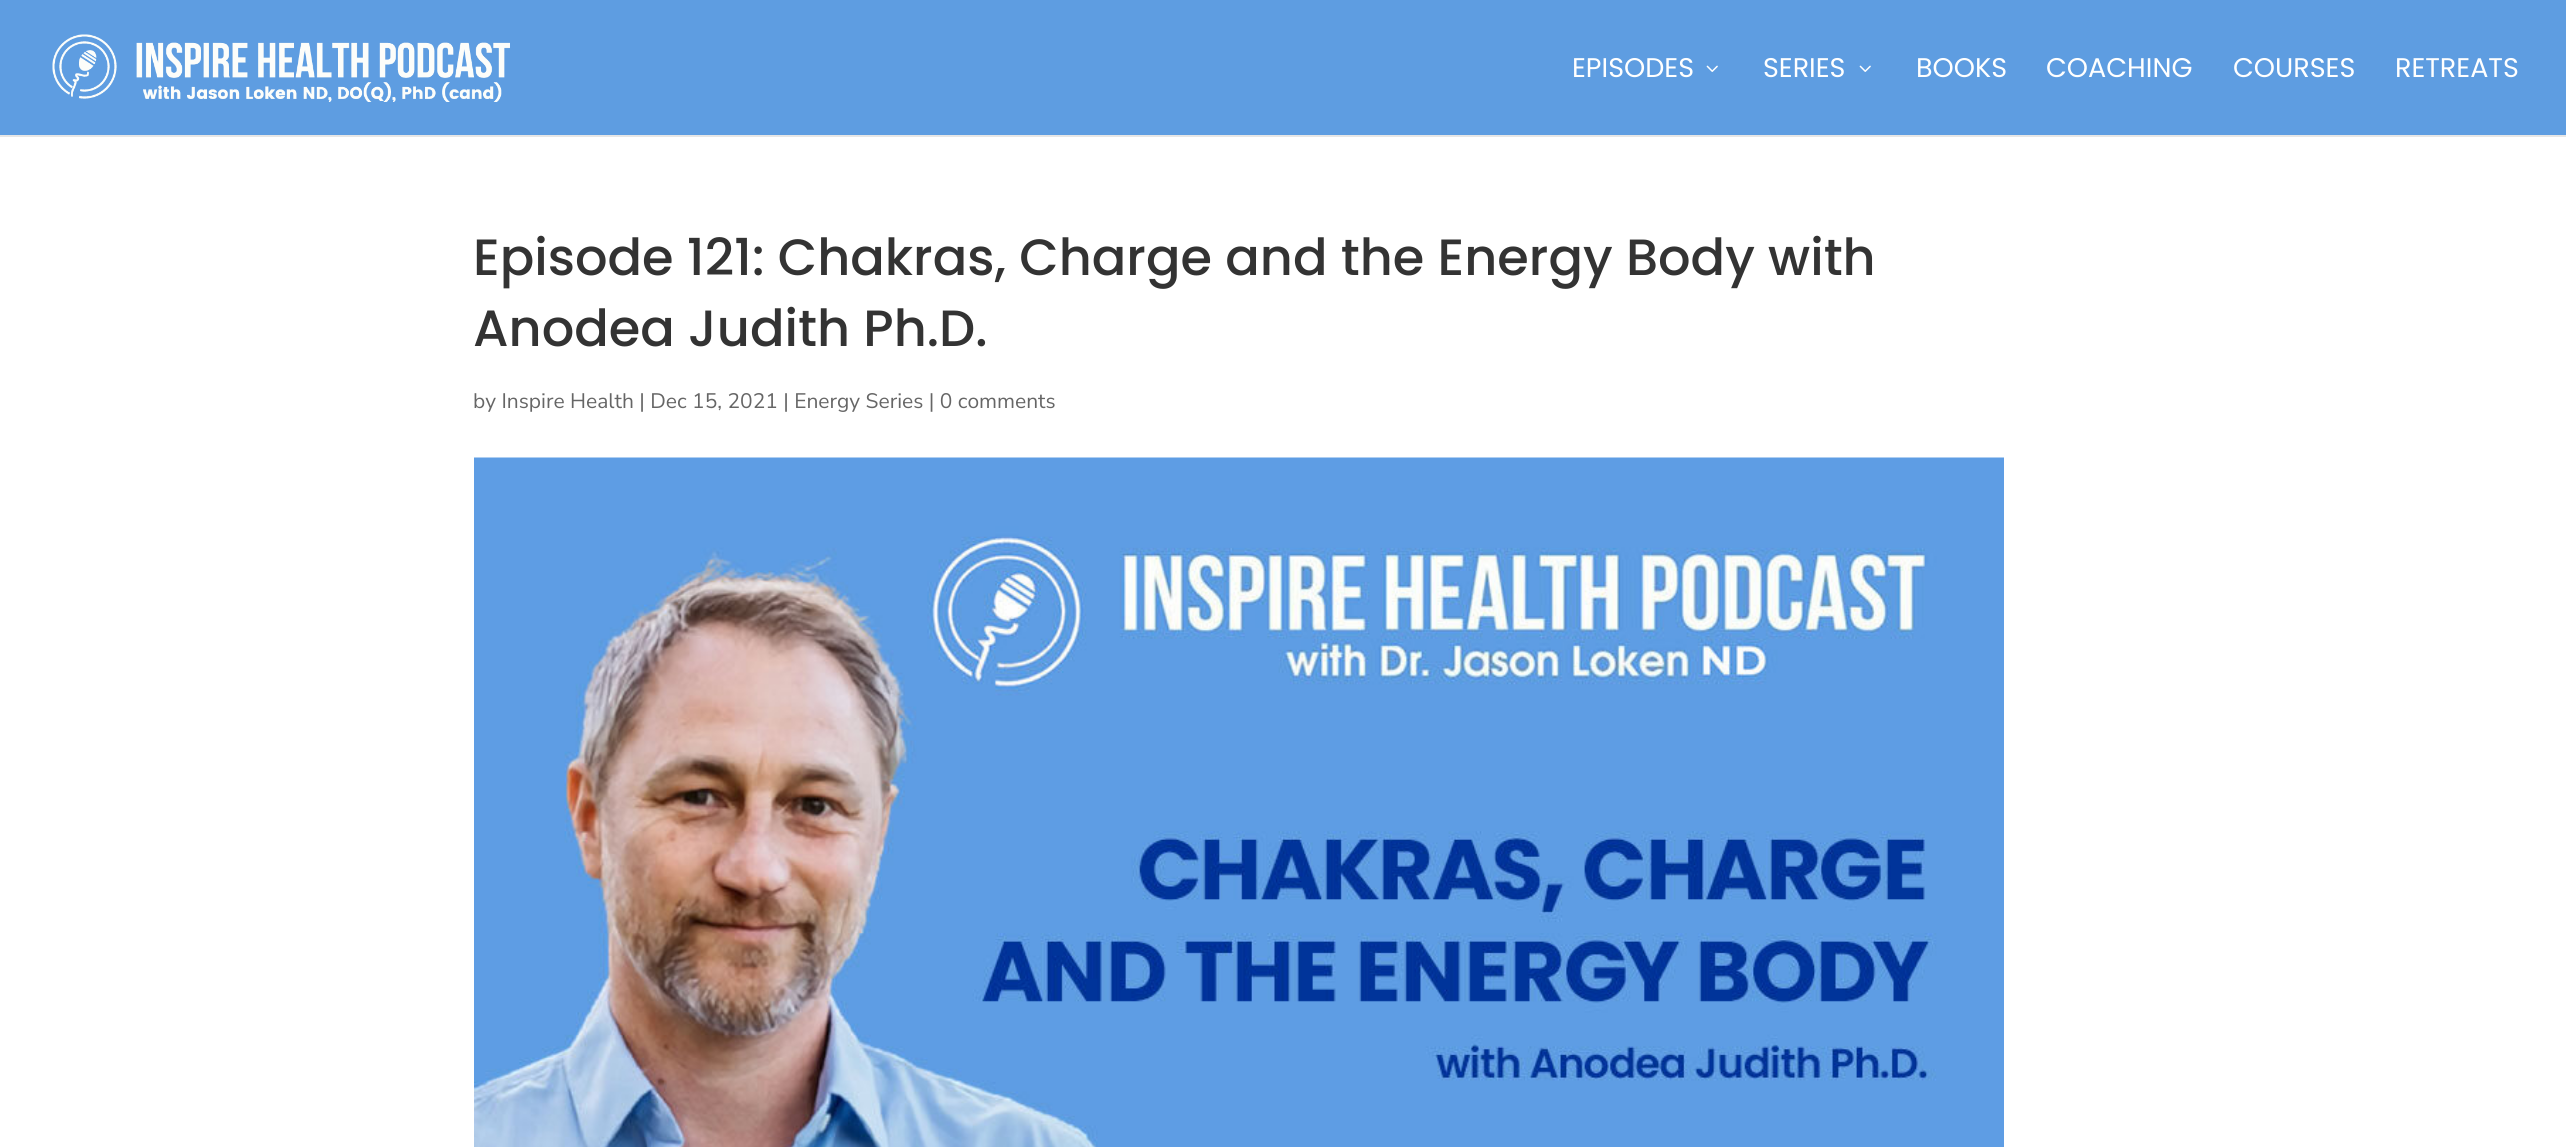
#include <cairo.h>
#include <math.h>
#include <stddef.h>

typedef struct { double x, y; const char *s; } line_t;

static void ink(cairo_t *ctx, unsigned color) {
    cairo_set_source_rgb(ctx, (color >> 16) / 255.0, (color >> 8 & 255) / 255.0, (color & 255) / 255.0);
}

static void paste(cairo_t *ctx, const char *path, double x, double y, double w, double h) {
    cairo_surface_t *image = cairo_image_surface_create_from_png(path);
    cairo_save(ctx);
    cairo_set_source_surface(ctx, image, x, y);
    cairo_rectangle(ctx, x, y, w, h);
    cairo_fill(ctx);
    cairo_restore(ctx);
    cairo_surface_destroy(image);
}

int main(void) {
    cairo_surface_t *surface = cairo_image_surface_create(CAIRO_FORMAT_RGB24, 2566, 1147);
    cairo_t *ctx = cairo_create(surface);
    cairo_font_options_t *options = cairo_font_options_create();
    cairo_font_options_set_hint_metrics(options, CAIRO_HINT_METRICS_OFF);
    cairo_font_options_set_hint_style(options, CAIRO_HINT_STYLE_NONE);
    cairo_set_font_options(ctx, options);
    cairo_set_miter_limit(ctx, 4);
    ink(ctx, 0xFFFFFF);
    cairo_paint(ctx);
    ink(ctx, 0xE6E6E6);
    cairo_new_path(ctx);
    cairo_move_to(ctx, 0, 135);
    cairo_line_to(ctx, 0, 137);
    cairo_line_to(ctx, 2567, 137);
    cairo_line_to(ctx, 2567, 2);
    cairo_line_to(ctx, 2566, 2);
    cairo_line_to(ctx, 2566, 135);
    cairo_close_path(ctx);
    cairo_fill(ctx);
    ink(ctx, 0x5E9DE1);
    cairo_rectangle(ctx, 0, 0, 2566, 135);
    cairo_fill(ctx);
    paste(ctx, "media/1.png", 52, 34, 458, 68);
    cairo_select_font_face(ctx, "Poppins", CAIRO_FONT_SLANT_NORMAL, CAIRO_FONT_WEIGHT_NORMAL);
    cairo_set_font_size(ctx, 27);
    ink(ctx, 0xFFFFFF);
    cairo_move_to(ctx, 1572, 77);
    cairo_show_text(ctx, "EPISODES");
    paste(ctx, "media/2.png", 1706, 65, 12, 7);
    cairo_move_to(ctx, 1763, 77);
    cairo_show_text(ctx, "SERIES");
    paste(ctx, "media/2.png", 1859, 65, 12, 7);
    {
        static const line_t items[] = {
            {1916, 77, "BOOKS"},
            {2046, 77, "COACHING"},
            {2233, 77, "COURSES"},
            {2395, 77, "RETREATS"},
        };
        for (size_t i = 0; i < sizeof items / sizeof *items; i++) {
            cairo_move_to(ctx, items[i].x, items[i].y);
            cairo_show_text(ctx, items[i].s);
        }
    }
    cairo_select_font_face(ctx, "Poppins Medium", CAIRO_FONT_SLANT_NORMAL, CAIRO_FONT_WEIGHT_NORMAL);
    cairo_set_font_size(ctx, 51);
    ink(ctx, 0x333333);
    cairo_move_to(ctx, 473, 275);
    cairo_show_text(ctx, "Episode 121: Chakras, Charge and the Energy Body with");
    cairo_move_to(ctx, 473, 346);
    cairo_show_text(ctx, "Anodea Judith Ph.D.");
    cairo_select_font_face(ctx, "Nunito Sans ExtraLight", CAIRO_FONT_SLANT_NORMAL, CAIRO_FONT_WEIGHT_NORMAL);
    cairo_set_font_size(ctx, 21);
    ink(ctx, 0x666666);
    cairo_move_to(ctx, 473, 408);
    cairo_show_text(ctx, "by Inspire Health | Dec 15, 2021 | Energy Series | 0 comments");
    paste(ctx, "media/3.png", 474, 457, 1530, 690);
    cairo_surface_write_to_png(surface, "image.png");
    cairo_font_options_destroy(options);
    cairo_destroy(ctx);
    cairo_surface_destroy(surface);
    return 0;
}
